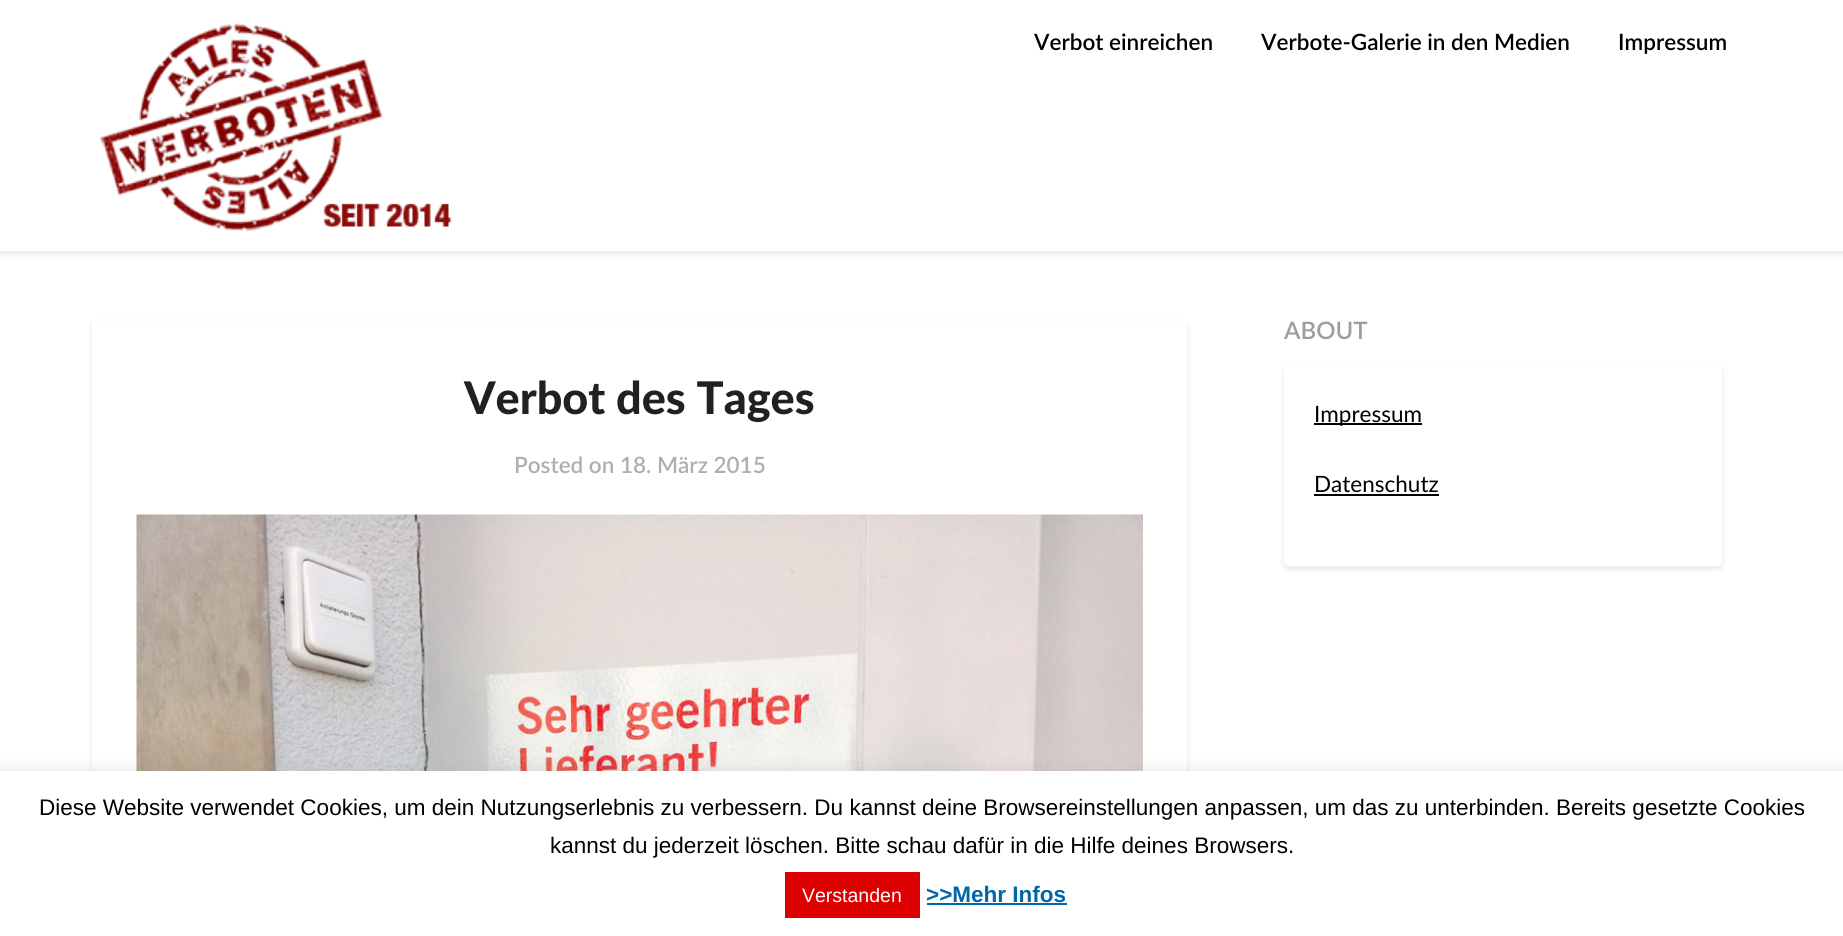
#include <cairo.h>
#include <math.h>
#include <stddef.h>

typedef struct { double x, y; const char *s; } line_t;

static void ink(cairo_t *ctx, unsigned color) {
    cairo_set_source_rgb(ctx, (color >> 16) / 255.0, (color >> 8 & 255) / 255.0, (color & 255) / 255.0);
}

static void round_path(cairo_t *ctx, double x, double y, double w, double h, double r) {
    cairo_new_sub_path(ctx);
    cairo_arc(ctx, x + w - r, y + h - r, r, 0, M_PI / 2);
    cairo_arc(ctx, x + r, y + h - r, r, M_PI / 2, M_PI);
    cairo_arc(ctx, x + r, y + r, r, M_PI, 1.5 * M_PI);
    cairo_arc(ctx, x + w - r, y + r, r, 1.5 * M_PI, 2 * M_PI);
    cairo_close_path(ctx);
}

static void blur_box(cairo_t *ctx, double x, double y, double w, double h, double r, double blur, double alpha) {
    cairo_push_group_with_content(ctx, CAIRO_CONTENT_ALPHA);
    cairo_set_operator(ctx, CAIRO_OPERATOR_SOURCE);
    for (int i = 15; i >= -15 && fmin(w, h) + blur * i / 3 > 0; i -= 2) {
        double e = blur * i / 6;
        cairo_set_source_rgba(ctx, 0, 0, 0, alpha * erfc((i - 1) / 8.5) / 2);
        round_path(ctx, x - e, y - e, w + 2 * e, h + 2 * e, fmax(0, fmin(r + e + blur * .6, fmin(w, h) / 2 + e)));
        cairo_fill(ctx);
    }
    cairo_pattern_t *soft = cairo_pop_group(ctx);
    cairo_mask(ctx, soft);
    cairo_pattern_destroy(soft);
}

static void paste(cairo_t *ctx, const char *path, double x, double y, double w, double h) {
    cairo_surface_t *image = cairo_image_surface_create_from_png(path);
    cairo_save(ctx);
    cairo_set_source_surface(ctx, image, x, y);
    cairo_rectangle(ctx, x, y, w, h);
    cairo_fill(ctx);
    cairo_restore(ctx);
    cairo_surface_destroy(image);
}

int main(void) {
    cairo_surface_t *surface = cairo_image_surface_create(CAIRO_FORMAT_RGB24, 1843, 936);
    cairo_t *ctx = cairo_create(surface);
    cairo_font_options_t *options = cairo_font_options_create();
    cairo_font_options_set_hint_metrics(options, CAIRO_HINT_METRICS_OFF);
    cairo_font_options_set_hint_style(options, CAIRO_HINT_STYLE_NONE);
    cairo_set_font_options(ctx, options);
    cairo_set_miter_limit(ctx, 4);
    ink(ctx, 0xFFFFFF);
    cairo_paint(ctx);
    ink(ctx, 0x000000);
    blur_box(ctx, 0, 3, 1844, 251, 0, 3, 0.1);
    ink(ctx, 0xFFFFFF);
    cairo_rectangle(ctx, 0, 0, 1843, 251);
    cairo_fill(ctx);
    paste(ctx, "media/1.png", 100, 23, 352, 209);
    cairo_select_font_face(ctx, "Lato SemiBold", CAIRO_FONT_SLANT_NORMAL, CAIRO_FONT_WEIGHT_NORMAL);
    cairo_set_font_size(ctx, 22.5);
    ink(ctx, 0x000000);
    {
        static const line_t items[] = {
            {1034, 50, "Verbot einreichen"},
            {1261, 50, "Verbote-Galerie in den Medien"},
            {1618, 50, "Impressum"},
        };
        for (size_t i = 0; i < sizeof items / sizeof *items; i++) {
            cairo_move_to(ctx, items[i].x, items[i].y);
            cairo_show_text(ctx, items[i].s);
        }
    }
    ink(ctx, 0x000000);
    blur_box(ctx, 92, 324, 1095, 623, 1.5, 3, 0.1);
    ink(ctx, 0xFFFFFF);
    round_path(ctx, 92, 321, 1095, 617, 1.5);
    cairo_fill(ctx);
    cairo_select_font_face(ctx, "Lato Black", CAIRO_FONT_SLANT_NORMAL, CAIRO_FONT_WEIGHT_NORMAL);
    cairo_set_font_size(ctx, 45);
    ink(ctx, 0x212121);
    cairo_move_to(ctx, 464, 414);
    cairo_show_text(ctx, "Verbot des Tages");
    cairo_select_font_face(ctx, "Lato SemiBold", CAIRO_FONT_SLANT_NORMAL, CAIRO_FONT_WEIGHT_NORMAL);
    cairo_set_font_size(ctx, 22.5);
    ink(ctx, 0xAFAFAF);
    cairo_move_to(ctx, 514, 473);
    cairo_show_text(ctx, "Posted on 18. März 2015");
    paste(ctx, "media/2.png", 136, 514, 1007, 257);
    cairo_set_font_size(ctx, 24);
    ink(ctx, 0x9E9E9E);
    cairo_move_to(ctx, 1284, 339);
    cairo_show_text(ctx, "ABOUT");
    ink(ctx, 0x000000);
    blur_box(ctx, 1284, 368, 438, 201, 5, 3, 0.1);
    ink(ctx, 0xFFFFFF);
    round_path(ctx, 1284, 365, 438, 201, 5);
    cairo_fill(ctx);
    ink(ctx, 0x000000);
    cairo_rectangle(ctx, 1314, 423, 108, 2);
    cairo_fill(ctx);
    cairo_select_font_face(ctx, "Lato", CAIRO_FONT_SLANT_NORMAL, CAIRO_FONT_WEIGHT_NORMAL);
    cairo_set_font_size(ctx, 22.5);
    cairo_move_to(ctx, 1314, 422);
    cairo_show_text(ctx, "Impressum");
    cairo_move_to(ctx, 1314, 492);
    cairo_show_text(ctx, "Datenschutz");
    cairo_rectangle(ctx, 1314, 494, 125, 2);
    cairo_fill(ctx);
    ink(ctx, 0xACABAB);
    blur_box(ctx, 0, 770, 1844, 165, 0, 7.5, 0.3);
    ink(ctx, 0xFFFFFF);
    cairo_rectangle(ctx, 0, 771, 1843, 165);
    cairo_fill(ctx);
    cairo_select_font_face(ctx, "Liberation Sans", CAIRO_FONT_SLANT_NORMAL, CAIRO_FONT_WEIGHT_NORMAL);
    ink(ctx, 0x000000);
    cairo_move_to(ctx, 39, 815);
    cairo_show_text(ctx, "Diese Website verwendet Cookies, um dein Nutzungserlebnis zu verbessern. Du kannst deine Browsereinstellungen anpassen, um das zu unterbinden. Bereits gesetzte Cookies");
    cairo_move_to(ctx, 550, 853);
    cairo_show_text(ctx, "kannst du jederzeit löschen. Bitte schau dafür in die Hilfe deines Browsers.");
    ink(ctx, 0xDD0000);
    cairo_rectangle(ctx, 785, 872, 135, 46);
    cairo_fill(ctx);
    cairo_set_font_size(ctx, 19.5);
    ink(ctx, 0xFFFFFF);
    cairo_move_to(ctx, 802, 902);
    cairo_show_text(ctx, "Verstanden");
    cairo_select_font_face(ctx, "Liberation Sans", CAIRO_FONT_SLANT_NORMAL, CAIRO_FONT_WEIGHT_BOLD);
    cairo_set_font_size(ctx, 22.5);
    ink(ctx, 0x0066AA);
    cairo_move_to(ctx, 926, 902);
    cairo_show_text(ctx, ">>Mehr Infos");
    cairo_rectangle(ctx, 927, 903, 140, 2);
    cairo_fill(ctx);
    cairo_surface_write_to_png(surface, "image.png");
    cairo_font_options_destroy(options);
    cairo_destroy(ctx);
    cairo_surface_destroy(surface);
    return 0;
}
